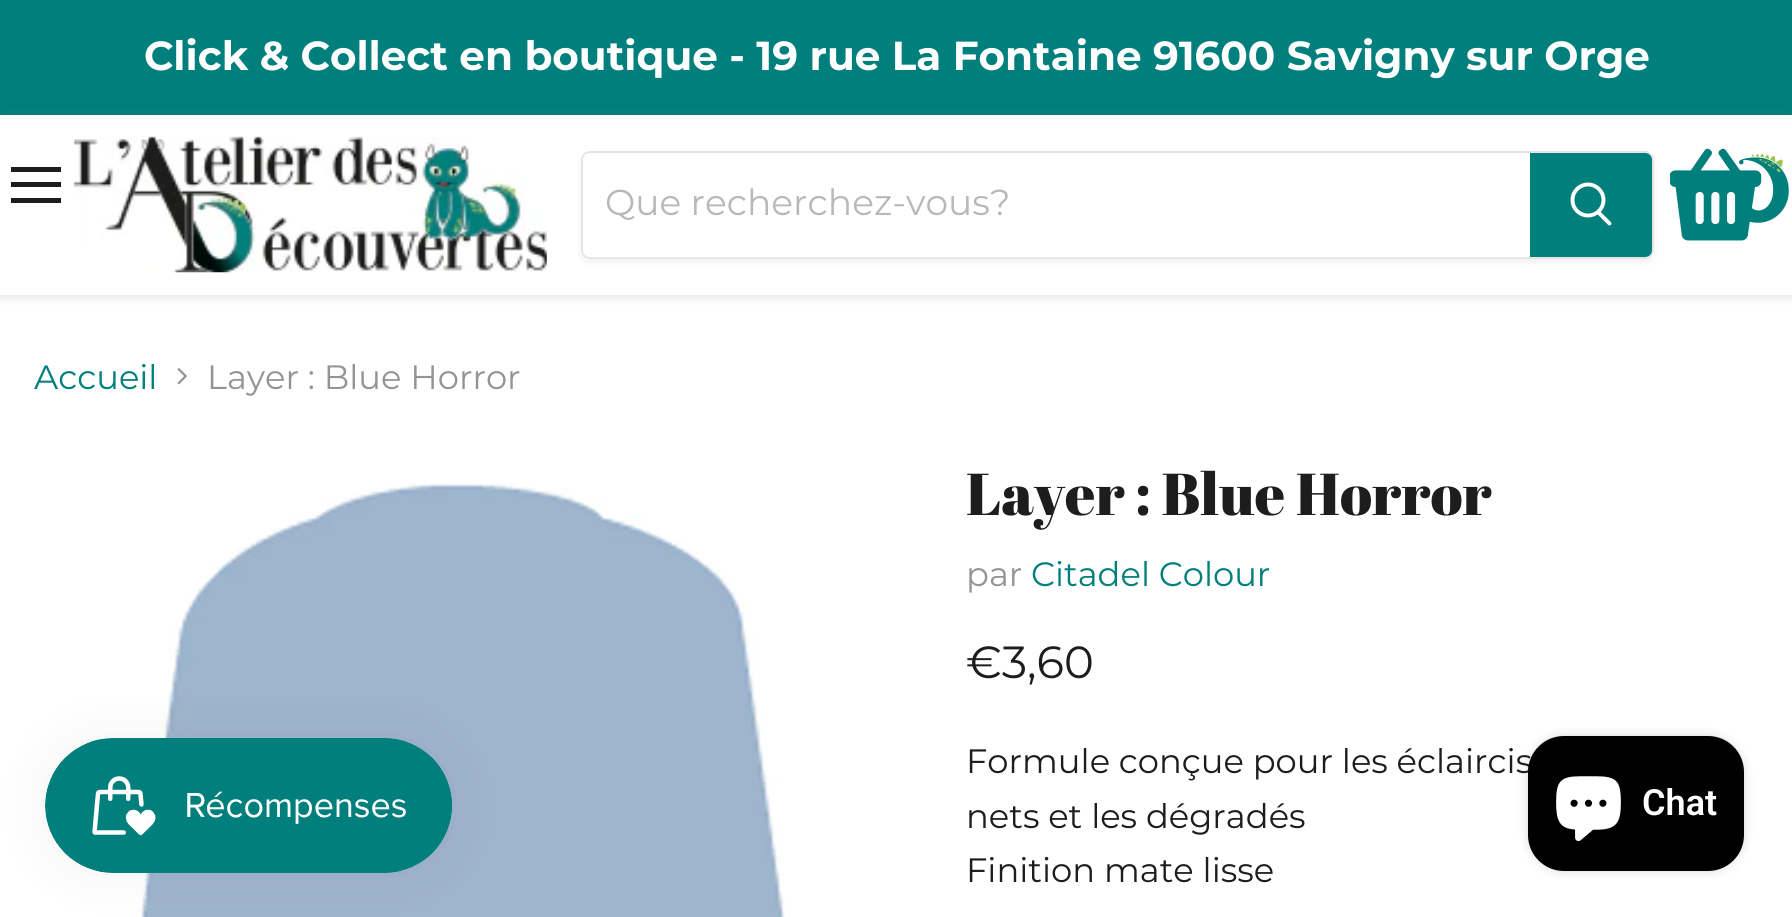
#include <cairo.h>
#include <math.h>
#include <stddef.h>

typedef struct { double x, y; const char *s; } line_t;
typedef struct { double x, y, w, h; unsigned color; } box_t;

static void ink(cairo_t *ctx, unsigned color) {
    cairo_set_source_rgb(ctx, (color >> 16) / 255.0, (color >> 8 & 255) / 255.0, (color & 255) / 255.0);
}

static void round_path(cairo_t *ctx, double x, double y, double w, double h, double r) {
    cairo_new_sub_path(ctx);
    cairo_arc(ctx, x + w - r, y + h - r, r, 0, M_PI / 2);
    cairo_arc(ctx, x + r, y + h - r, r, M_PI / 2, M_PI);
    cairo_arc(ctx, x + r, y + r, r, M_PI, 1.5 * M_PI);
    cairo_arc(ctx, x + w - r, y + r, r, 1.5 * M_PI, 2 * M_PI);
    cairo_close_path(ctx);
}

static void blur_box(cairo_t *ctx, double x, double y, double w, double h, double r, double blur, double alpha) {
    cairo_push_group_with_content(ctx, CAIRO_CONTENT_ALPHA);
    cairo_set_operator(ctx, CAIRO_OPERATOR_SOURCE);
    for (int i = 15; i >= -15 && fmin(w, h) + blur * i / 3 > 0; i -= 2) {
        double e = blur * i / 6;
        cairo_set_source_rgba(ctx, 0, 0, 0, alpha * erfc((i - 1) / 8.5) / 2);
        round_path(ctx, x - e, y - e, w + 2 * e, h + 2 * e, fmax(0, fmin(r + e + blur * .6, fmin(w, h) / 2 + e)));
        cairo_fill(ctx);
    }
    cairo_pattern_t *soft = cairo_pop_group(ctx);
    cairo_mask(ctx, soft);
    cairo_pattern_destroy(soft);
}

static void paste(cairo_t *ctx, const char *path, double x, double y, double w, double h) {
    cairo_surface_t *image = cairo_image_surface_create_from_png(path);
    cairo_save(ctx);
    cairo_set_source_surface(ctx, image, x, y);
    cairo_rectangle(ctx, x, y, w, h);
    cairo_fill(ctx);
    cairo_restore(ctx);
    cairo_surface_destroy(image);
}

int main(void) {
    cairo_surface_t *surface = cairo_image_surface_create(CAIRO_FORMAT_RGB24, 1792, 917);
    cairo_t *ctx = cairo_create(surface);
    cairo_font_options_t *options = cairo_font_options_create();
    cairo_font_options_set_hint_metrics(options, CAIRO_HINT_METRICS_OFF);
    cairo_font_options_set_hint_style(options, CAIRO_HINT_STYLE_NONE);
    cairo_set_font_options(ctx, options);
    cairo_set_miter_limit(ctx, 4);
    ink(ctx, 0xFFFFFF);
    cairo_paint(ctx);
    ink(ctx, 0x007F7C);
    cairo_rectangle(ctx, 0, 0, 1792, 115);
    cairo_fill(ctx);
    cairo_select_font_face(ctx, "Montserrat", CAIRO_FONT_SLANT_NORMAL, CAIRO_FONT_WEIGHT_BOLD);
    cairo_set_font_size(ctx, 40.5);
    ink(ctx, 0xFFFFFF);
    cairo_move_to(ctx, 144, 70);
    cairo_show_text(ctx, "Click & Collect en boutique - 19 rue La Fontaine 91600 Savigny sur Orge");
    ink(ctx, 0x808080);
    blur_box(ctx, 0, 117, 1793, 180, 0, 4.5, 0.25);
    {
        static const box_t items[] = {
            {0, 115, 1792, 180, 0xFFFFFF},
            {11, 167, 50, 5, 0x1D1D1D},
            {11, 182, 50, 5, 0x1D1D1D},
            {11, 198, 50, 5, 0x1D1D1D},
        };
        for (size_t i = 0; i < sizeof items / sizeof *items; i++) {
            ink(ctx, items[i].color);
            cairo_rectangle(ctx, items[i].x, items[i].y, items[i].w, items[i].h);
            cairo_fill(ctx);
        }
    }
    paste(ctx, "media/1.png", 74, 136, 473, 137);
    cairo_save(ctx);
    cairo_set_fill_rule(ctx, CAIRO_FILL_RULE_EVEN_ODD);
    cairo_new_path(ctx);
    cairo_move_to(ctx, 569, 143);
    cairo_line_to(ctx, 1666, 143);
    cairo_line_to(ctx, 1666, 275);
    cairo_line_to(ctx, 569, 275);
    cairo_close_path(ctx);
    cairo_move_to(ctx, 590, 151);
    cairo_line_to(ctx, 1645, 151);
    cairo_curve_to(ctx, 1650, 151, 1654, 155, 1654, 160);
    cairo_line_to(ctx, 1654, 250);
    cairo_curve_to(ctx, 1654, 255, 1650, 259, 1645, 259);
    cairo_line_to(ctx, 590, 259);
    cairo_curve_to(ctx, 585, 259, 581, 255, 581, 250);
    cairo_line_to(ctx, 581, 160);
    cairo_curve_to(ctx, 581, 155, 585, 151, 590, 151);
    cairo_close_path(ctx);
    cairo_clip(ctx);
    ink(ctx, 0x808080);
    blur_box(ctx, 581, 155, 1073, 108, 9, 3.5, 0.11);
    cairo_restore(ctx);
    round_path(ctx, 582, 152, 1071, 106, 8);
    cairo_set_source_rgba(ctx, 0.502, 0.502, 0.502, 0.2);
    cairo_stroke(ctx);
    ink(ctx, 0xFFFFFF);
    cairo_new_path(ctx);
    cairo_move_to(ctx, 590, 153);
    cairo_line_to(ctx, 1530, 153);
    cairo_line_to(ctx, 1530, 257);
    cairo_line_to(ctx, 590, 257);
    cairo_curve_to(ctx, 586, 257, 583, 254, 583, 250);
    cairo_line_to(ctx, 583, 160);
    cairo_curve_to(ctx, 583, 156, 586, 153, 590, 153);
    cairo_close_path(ctx);
    cairo_fill(ctx);
    cairo_select_font_face(ctx, "Montserrat Thin", CAIRO_FONT_SLANT_NORMAL, CAIRO_FONT_WEIGHT_NORMAL);
    cairo_set_font_size(ctx, 36);
    ink(ctx, 0xB8B8B8);
    cairo_move_to(ctx, 605, 215);
    cairo_show_text(ctx, "Que recherchez-vous?");
    ink(ctx, 0x007F7C);
    cairo_new_path(ctx);
    cairo_move_to(ctx, 1531, 154);
    cairo_line_to(ctx, 1645, 154);
    cairo_curve_to(ctx, 1648.5, 154, 1651, 156.5, 1651, 160);
    cairo_line_to(ctx, 1651, 250);
    cairo_curve_to(ctx, 1651, 253.5, 1648.5, 256, 1645, 256);
    cairo_line_to(ctx, 1531, 256);
    cairo_close_path(ctx);
    cairo_fill_preserve(ctx);
    cairo_stroke(ctx);
    cairo_new_path(ctx);
    cairo_move_to(ctx, 1609.5, 223.5);
    cairo_line_to(ctx, 1598.5, 212.5);
    ink(ctx, 0xFFFFFF);
    cairo_set_line_width(ctx, 3.9);
    cairo_set_line_cap(ctx, CAIRO_LINE_CAP_ROUND);
    cairo_stroke(ctx);
    cairo_arc(ctx, 1588, 200, 15.5, 0, 2 * M_PI);
    cairo_set_line_cap(ctx, CAIRO_LINE_CAP_BUTT);
    cairo_stroke(ctx);
    paste(ctx, "media/2.png", 1670, 148, 119, 93);
    cairo_set_font_size(ctx, 33.75);
    ink(ctx, 0x007F7C);
    cairo_move_to(ctx, 34, 389);
    cairo_show_text(ctx, "Accueil");
    paste(ctx, "media/3.png", 177, 368, 11, 17);
    ink(ctx, 0x949494);
    cairo_move_to(ctx, 207, 389);
    cairo_show_text(ctx, "Layer : Blue Horror");
    paste(ctx, "media/4.png", 141, 483, 644, 434);
    cairo_select_font_face(ctx, "Abril Fatface", CAIRO_FONT_SLANT_NORMAL, CAIRO_FONT_WEIGHT_NORMAL);
    cairo_set_font_size(ctx, 59);
    ink(ctx, 0x1D1D1D);
    cairo_move_to(ctx, 966, 515);
    cairo_show_text(ctx, "Layer : Blue Horror");
    cairo_select_font_face(ctx, "Montserrat Thin", CAIRO_FONT_SLANT_NORMAL, CAIRO_FONT_WEIGHT_NORMAL);
    cairo_set_font_size(ctx, 33.75);
    ink(ctx, 0x949494);
    cairo_move_to(ctx, 966, 586);
    cairo_show_text(ctx, "par");
    ink(ctx, 0x007F7C);
    cairo_move_to(ctx, 1031, 586);
    cairo_show_text(ctx, "Citadel Colour");
    cairo_set_font_size(ctx, 45);
    ink(ctx, 0x1D1D1D);
    cairo_move_to(ctx, 966, 678);
    cairo_show_text(ctx, "€3,60");
    cairo_set_font_size(ctx, 33.75);
    {
        static const line_t items[] = {
            {966, 773, "Formule conçue pour les éclaircis"},
            {966, 828, "nets et les dégradés"},
            {966, 882, "Finition mate lisse"},
        };
        for (size_t i = 0; i < sizeof items / sizeof *items; i++) {
            cairo_move_to(ctx, items[i].x, items[i].y);
            cairo_show_text(ctx, items[i].s);
        }
    }
    ink(ctx, 0x000000);
    blur_box(ctx, 45, 738, 407, 135, 67.5, 28, 0.05);
    paste(ctx, "media/5.png", 45, 738, 407, 135);
    blur_box(ctx, 1528, 736, 216, 135, 36, 5.5, 0.15);
    ink(ctx, 0x000000);
    round_path(ctx, 1528, 736, 216, 135, 36);
    cairo_fill(ctx);
    paste(ctx, "media/6.png", 1556, 776, 65, 65);
    cairo_select_font_face(ctx, "Roboto SemiBold", CAIRO_FONT_SLANT_NORMAL, CAIRO_FONT_WEIGHT_NORMAL);
    cairo_set_font_size(ctx, 36);
    ink(ctx, 0xFFFFFF);
    cairo_move_to(ctx, 1642, 815);
    cairo_show_text(ctx, "Chat");
    cairo_surface_write_to_png(surface, "image.png");
    cairo_font_options_destroy(options);
    cairo_destroy(ctx);
    cairo_surface_destroy(surface);
    return 0;
}
